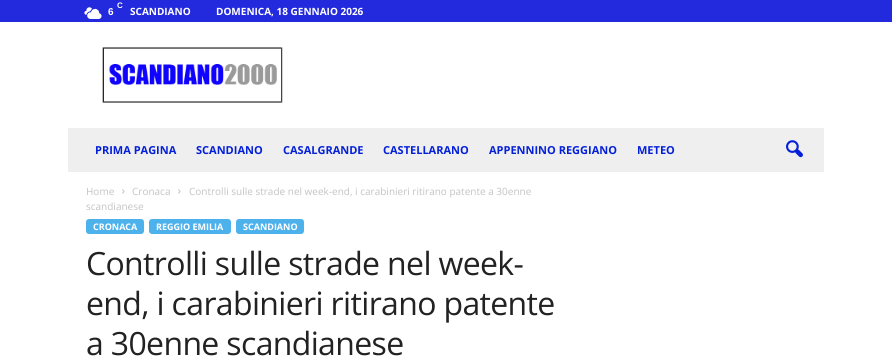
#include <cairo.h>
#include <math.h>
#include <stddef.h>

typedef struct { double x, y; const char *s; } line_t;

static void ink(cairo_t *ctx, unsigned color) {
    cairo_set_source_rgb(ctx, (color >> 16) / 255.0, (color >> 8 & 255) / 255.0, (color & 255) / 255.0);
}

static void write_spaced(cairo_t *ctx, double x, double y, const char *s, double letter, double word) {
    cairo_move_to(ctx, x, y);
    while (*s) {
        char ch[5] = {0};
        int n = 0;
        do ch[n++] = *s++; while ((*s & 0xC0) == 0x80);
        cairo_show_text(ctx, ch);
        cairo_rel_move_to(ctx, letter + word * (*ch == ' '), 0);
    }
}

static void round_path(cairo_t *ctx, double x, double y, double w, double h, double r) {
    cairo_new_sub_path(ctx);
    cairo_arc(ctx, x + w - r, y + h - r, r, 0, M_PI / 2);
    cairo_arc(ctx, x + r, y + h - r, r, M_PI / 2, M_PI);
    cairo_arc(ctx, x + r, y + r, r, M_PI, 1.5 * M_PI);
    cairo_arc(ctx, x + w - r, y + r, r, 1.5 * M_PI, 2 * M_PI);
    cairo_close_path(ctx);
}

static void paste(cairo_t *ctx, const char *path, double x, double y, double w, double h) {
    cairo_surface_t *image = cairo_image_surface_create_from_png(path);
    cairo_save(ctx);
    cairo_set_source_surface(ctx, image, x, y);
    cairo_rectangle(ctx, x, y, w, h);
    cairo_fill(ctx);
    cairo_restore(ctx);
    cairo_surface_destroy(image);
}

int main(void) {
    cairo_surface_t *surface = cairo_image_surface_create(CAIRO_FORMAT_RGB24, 892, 361);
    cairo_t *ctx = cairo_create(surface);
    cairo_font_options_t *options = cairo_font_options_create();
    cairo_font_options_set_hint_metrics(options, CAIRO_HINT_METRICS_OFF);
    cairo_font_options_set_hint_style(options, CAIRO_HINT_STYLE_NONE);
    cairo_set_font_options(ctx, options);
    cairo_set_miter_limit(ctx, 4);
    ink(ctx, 0xFFFFFF);
    cairo_paint(ctx);
    ink(ctx, 0x2329DD);
    cairo_rectangle(ctx, 0, 0, 892, 22);
    cairo_fill(ctx);
    paste(ctx, "media/1.png", 84, 7, 18, 12);
    cairo_select_font_face(ctx, "Liberation Sans", CAIRO_FONT_SLANT_NORMAL, CAIRO_FONT_WEIGHT_BOLD);
    cairo_set_font_size(ctx, 8);
    ink(ctx, 0xFFFFFF);
    cairo_move_to(ctx, 117, 8);
    cairo_show_text(ctx, "C");
    cairo_set_font_size(ctx, 10);
    cairo_move_to(ctx, 108, 15);
    cairo_show_text(ctx, "6");
    cairo_select_font_face(ctx, "Open Sans", CAIRO_FONT_SLANT_NORMAL, CAIRO_FONT_WEIGHT_BOLD);
    cairo_move_to(ctx, 130, 15);
    cairo_show_text(ctx, "SCANDIANO");
    cairo_move_to(ctx, 216, 15);
    cairo_show_text(ctx, "DOMENICA, 18 GENNAIO 2026");
    paste(ctx, "media/2.png", 102, 47, 181, 56);
    ink(ctx, 0xEFEFEF);
    cairo_rectangle(ctx, 68, 128, 756, 44);
    cairo_fill(ctx);
    cairo_set_font_size(ctx, 11);
    ink(ctx, 0x0420D8);
    {
        static const line_t items[] = {
            {95, 154, "PRIMA PAGINA"},
            {196, 154, "SCANDIANO"},
            {283, 154, "CASALGRANDE"},
            {383, 154, "CASTELLARANO"},
            {489, 154, "APPENNINO REGGIANO"},
            {637, 154, "METEO"},
        };
        for (size_t i = 0; i < sizeof items / sizeof *items; i++) {
            cairo_move_to(ctx, items[i].x, items[i].y);
            cairo_show_text(ctx, items[i].s);
        }
    }
    paste(ctx, "media/3.png", 786, 140, 17, 18);
    cairo_select_font_face(ctx, "Open Sans", CAIRO_FONT_SLANT_NORMAL, CAIRO_FONT_WEIGHT_NORMAL);
    cairo_set_font_size(ctx, 10);
    ink(ctx, 0xC3C3C3);
    cairo_move_to(ctx, 86, 195);
    cairo_show_text(ctx, "Home");
    paste(ctx, "media/4.png", 122, 189, 3, 5);
    cairo_move_to(ctx, 132, 195);
    cairo_show_text(ctx, "Cronaca");
    paste(ctx, "media/4.png", 178, 189, 3, 5);
    cairo_move_to(ctx, 189, 195);
    cairo_show_text(ctx, "Controlli sulle strade nel week-end, i carabinieri ritirano patente a 30enne");
    cairo_move_to(ctx, 86, 210);
    cairo_show_text(ctx, "scandianese");
    ink(ctx, 0x4DB2EC);
    round_path(ctx, 86, 219, 58, 15, 3);
    cairo_fill(ctx);
    cairo_select_font_face(ctx, "Open Sans", CAIRO_FONT_SLANT_NORMAL, CAIRO_FONT_WEIGHT_BOLD);
    cairo_set_font_size(ctx, 9);
    ink(ctx, 0xFFFFFF);
    cairo_move_to(ctx, 93, 230);
    cairo_show_text(ctx, "CRONACA");
    ink(ctx, 0x4DB2EC);
    round_path(ctx, 149, 219, 82, 15, 3);
    cairo_fill(ctx);
    ink(ctx, 0xFFFFFF);
    cairo_move_to(ctx, 156, 230);
    cairo_show_text(ctx, "REGGIO EMILIA");
    ink(ctx, 0x4DB2EC);
    round_path(ctx, 236, 219, 68, 15, 3);
    cairo_fill(ctx);
    ink(ctx, 0xFFFFFF);
    cairo_move_to(ctx, 243, 230);
    cairo_show_text(ctx, "SCANDIANO");
    cairo_select_font_face(ctx, "Open Sans", CAIRO_FONT_SLANT_NORMAL, CAIRO_FONT_WEIGHT_NORMAL);
    cairo_set_font_size(ctx, 32);
    ink(ctx, 0x222222);
    {
        static const line_t items[] = {
            {86, 275, "Controlli sulle strade nel week-"},
            {86, 315, "end, i carabinieri ritirano patente"},
            {86, 355, "a 30enne scandianese"},
        };
        for (size_t i = 0; i < sizeof items / sizeof *items; i++) {
            write_spaced(ctx, items[i].x, items[i].y, items[i].s, -0.65, 0);
        }
    }
    cairo_surface_write_to_png(surface, "image.png");
    cairo_font_options_destroy(options);
    cairo_destroy(ctx);
    cairo_surface_destroy(surface);
    return 0;
}
